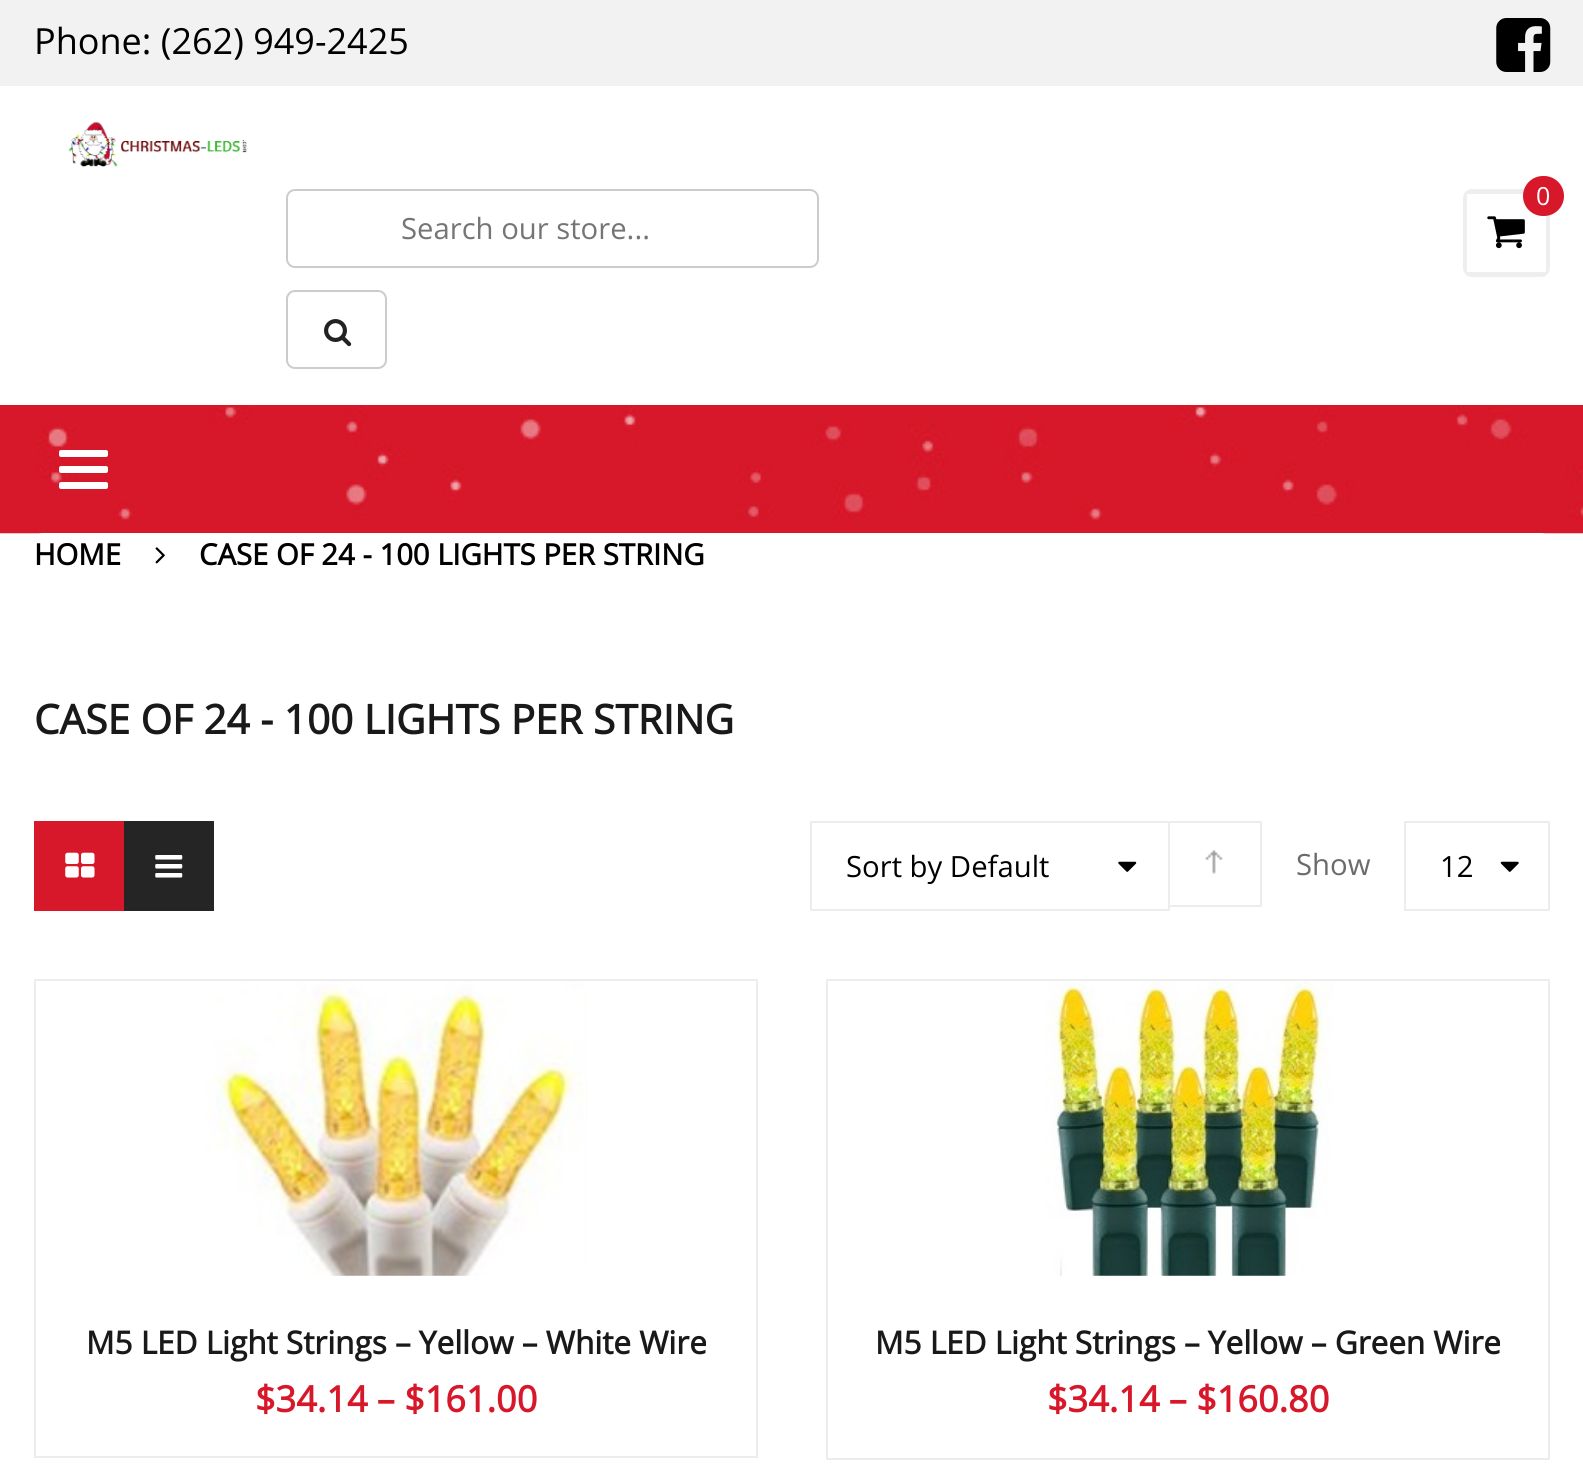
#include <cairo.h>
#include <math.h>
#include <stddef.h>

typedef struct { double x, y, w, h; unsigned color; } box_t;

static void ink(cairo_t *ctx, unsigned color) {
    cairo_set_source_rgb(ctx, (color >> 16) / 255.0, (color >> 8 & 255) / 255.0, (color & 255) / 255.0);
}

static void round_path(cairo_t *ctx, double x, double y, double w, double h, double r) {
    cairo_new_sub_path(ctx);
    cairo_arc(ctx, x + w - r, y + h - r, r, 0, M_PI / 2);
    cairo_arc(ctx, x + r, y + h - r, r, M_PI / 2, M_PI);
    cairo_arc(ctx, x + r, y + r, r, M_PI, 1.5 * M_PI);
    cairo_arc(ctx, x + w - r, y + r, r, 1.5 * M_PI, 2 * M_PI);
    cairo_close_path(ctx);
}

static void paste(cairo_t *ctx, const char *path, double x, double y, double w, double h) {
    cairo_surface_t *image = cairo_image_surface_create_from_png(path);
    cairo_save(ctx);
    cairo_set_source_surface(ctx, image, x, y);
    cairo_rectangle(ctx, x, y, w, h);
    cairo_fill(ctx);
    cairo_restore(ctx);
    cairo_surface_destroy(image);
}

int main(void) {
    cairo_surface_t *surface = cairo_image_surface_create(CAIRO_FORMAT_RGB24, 1583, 1467);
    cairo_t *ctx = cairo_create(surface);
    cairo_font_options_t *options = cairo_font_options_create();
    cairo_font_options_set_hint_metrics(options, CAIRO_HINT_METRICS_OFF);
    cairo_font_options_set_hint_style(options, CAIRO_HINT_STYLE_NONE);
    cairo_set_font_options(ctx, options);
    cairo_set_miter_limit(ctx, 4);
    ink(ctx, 0xFFFFFF);
    cairo_paint(ctx);
    ink(ctx, 0xF2F2F2);
    cairo_rectangle(ctx, 0, 0, 1583, 86);
    cairo_fill(ctx);
    cairo_select_font_face(ctx, "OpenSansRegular", CAIRO_FONT_SLANT_NORMAL, CAIRO_FONT_WEIGHT_NORMAL);
    cairo_set_font_size(ctx, 36);
    ink(ctx, 0x000000);
    cairo_move_to(ctx, 34, 54);
    cairo_show_text(ctx, "Phone: (262) 949-2425");
    paste(ctx, "media/1.png", 1496, 18, 55, 54);
    paste(ctx, "media/2.png", 68, 121, 179, 46);
    round_path(ctx, 1465.5, 191.5, 82, 83, 6.5);
    ink(ctx, 0xEEEEEE);
    cairo_set_line_width(ctx, 5);
    cairo_stroke(ctx);
    ink(ctx, 0xFFFFFF);
    cairo_rectangle(ctx, 1467, 194, 79, 78);
    cairo_fill(ctx);
    ink(ctx, 0xD7182A);
    round_path(ctx, 1523, 176, 41, 40, 20);
    cairo_fill(ctx);
    cairo_set_font_size(ctx, 25);
    ink(ctx, 0xFFFFFF);
    cairo_move_to(ctx, 1536, 205);
    cairo_show_text(ctx, "0");
    paste(ctx, "media/3.png", 1487, 216, 38, 33);
    round_path(ctx, 287, 190, 531, 77, 8);
    ink(ctx, 0xCCCCCC);
    cairo_set_line_width(ctx, 2);
    cairo_stroke(ctx);
    cairo_set_font_size(ctx, 29.25);
    ink(ctx, 0x757575);
    cairo_move_to(ctx, 401, 239);
    cairo_show_text(ctx, "Search our store...");
    round_path(ctx, 287, 291, 99, 77, 8);
    ink(ctx, 0xCCCCCC);
    cairo_stroke(ctx);
    paste(ctx, "media/4.png", 324, 319, 28, 28);
    paste(ctx, "media/5.png", 0, 405, 1583, 129);
    ink(ctx, 0xFFFFFF);
    round_path(ctx, 59, 450, 49, 7, 2);
    cairo_fill(ctx);
    round_path(ctx, 59, 466, 49, 7, 2);
    cairo_fill(ctx);
    round_path(ctx, 59, 482, 49, 7, 2);
    cairo_fill(ctx);
    round_path(ctx, 34, 533, 1516, 75, 9);
    cairo_fill(ctx);
    cairo_select_font_face(ctx, "OpenSansRegular", CAIRO_FONT_SLANT_NORMAL, CAIRO_FONT_WEIGHT_BOLD);
    ink(ctx, 0x000000);
    cairo_move_to(ctx, 34, 565);
    cairo_show_text(ctx, "HOME");
    paste(ctx, "media/6.png", 155, 547, 10, 17);
    cairo_move_to(ctx, 199, 565);
    cairo_show_text(ctx, "CASE OF 24 - 100 LIGHTS PER STRING");
    cairo_set_font_size(ctx, 40.5);
    ink(ctx, 0x191919);
    cairo_move_to(ctx, 34, 734);
    cairo_show_text(ctx, "CASE OF 24 - 100 LIGHTS PER STRING");
    ink(ctx, 0xD7182A);
    cairo_rectangle(ctx, 34, 821, 90, 90);
    cairo_fill(ctx);
    paste(ctx, "media/7.png", 65, 852, 30, 26);
    ink(ctx, 0x252525);
    cairo_rectangle(ctx, 124, 821, 90, 90);
    cairo_fill(ctx);
    paste(ctx, "media/8.png", 155, 855, 28, 23);
    cairo_rectangle(ctx, 811, 822, 358, 88);
    ink(ctx, 0xEDEDED);
    cairo_stroke(ctx);
    cairo_select_font_face(ctx, "OpenSansRegular", CAIRO_FONT_SLANT_NORMAL, CAIRO_FONT_WEIGHT_NORMAL);
    cairo_set_font_size(ctx, 29.25);
    ink(ctx, 0x000000);
    cairo_move_to(ctx, 846, 877);
    cairo_show_text(ctx, "Sort by Default");
    paste(ctx, "media/9.png", 1118, 861, 19, 11);
    {
        static const box_t items[] = {
            {1170, 821, 92, 2, 0xEDEDED},
            {1260, 821, 2, 86, 0xEDEDED},
            {1170, 905, 92, 2, 0xEDEDED},
        };
        for (size_t i = 0; i < sizeof items / sizeof *items; i++) {
            ink(ctx, items[i].color);
            cairo_rectangle(ctx, items[i].x, items[i].y, items[i].w, items[i].h);
            cairo_fill(ctx);
        }
    }
    paste(ctx, "media/10.png", 1205, 850, 18, 24);
    ink(ctx, 0x6B6B6B);
    cairo_move_to(ctx, 1296, 875);
    cairo_show_text(ctx, "Show");
    cairo_rectangle(ctx, 1405, 822, 144, 88);
    ink(ctx, 0xEDEDED);
    cairo_stroke(ctx);
    ink(ctx, 0x000000);
    cairo_move_to(ctx, 1440, 877);
    cairo_show_text(ctx, "12");
    paste(ctx, "media/11.png", 1500, 861, 19, 11);
    cairo_rectangle(ctx, 35, 980, 722, 477);
    ink(ctx, 0xEDEDED);
    cairo_stroke(ctx);
    paste(ctx, "media/12.png", 205, 981, 382, 295);
    cairo_select_font_face(ctx, "OpenSansRegular", CAIRO_FONT_SLANT_NORMAL, CAIRO_FONT_WEIGHT_BOLD);
    cairo_set_font_size(ctx, 31.5);
    ink(ctx, 0x191919);
    cairo_move_to(ctx, 86, 1354);
    cairo_show_text(ctx, "M5 LED Light Strings – Yellow – White Wire");
    cairo_set_font_size(ctx, 36);
    ink(ctx, 0xD7182A);
    cairo_move_to(ctx, 255, 1412);
    cairo_show_text(ctx, "$34.14 – $161.00");
    cairo_rectangle(ctx, 827, 980, 722, 479);
    ink(ctx, 0xEDEDED);
    cairo_stroke(ctx);
    paste(ctx, "media/13.png", 1044, 981, 290, 295);
    cairo_set_font_size(ctx, 31.5);
    ink(ctx, 0x191919);
    cairo_move_to(ctx, 875, 1354);
    cairo_show_text(ctx, "M5 LED Light Strings – Yellow – Green Wire");
    cairo_set_font_size(ctx, 36);
    ink(ctx, 0xD7182A);
    cairo_move_to(ctx, 1047, 1412);
    cairo_show_text(ctx, "$34.14 – $160.80");
    cairo_surface_write_to_png(surface, "image.png");
    cairo_font_options_destroy(options);
    cairo_destroy(ctx);
    cairo_surface_destroy(surface);
    return 0;
}
